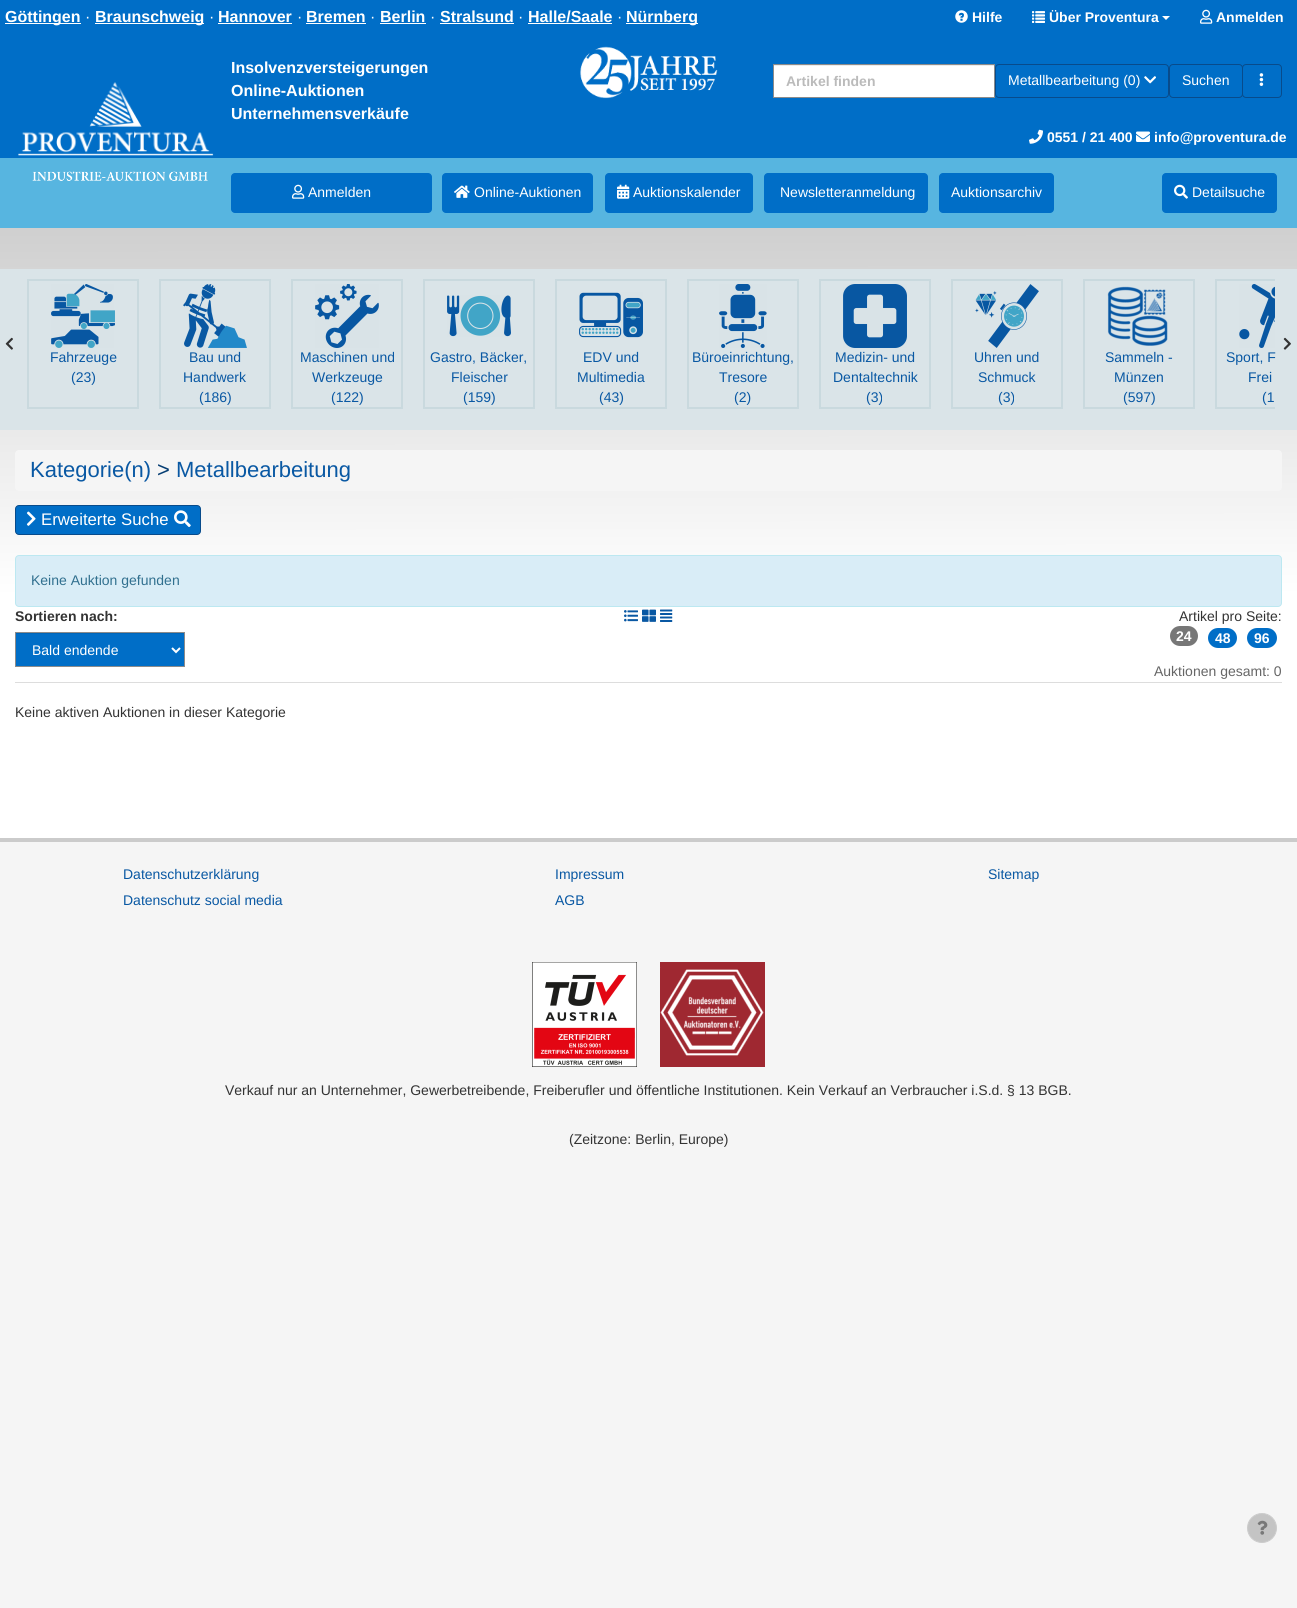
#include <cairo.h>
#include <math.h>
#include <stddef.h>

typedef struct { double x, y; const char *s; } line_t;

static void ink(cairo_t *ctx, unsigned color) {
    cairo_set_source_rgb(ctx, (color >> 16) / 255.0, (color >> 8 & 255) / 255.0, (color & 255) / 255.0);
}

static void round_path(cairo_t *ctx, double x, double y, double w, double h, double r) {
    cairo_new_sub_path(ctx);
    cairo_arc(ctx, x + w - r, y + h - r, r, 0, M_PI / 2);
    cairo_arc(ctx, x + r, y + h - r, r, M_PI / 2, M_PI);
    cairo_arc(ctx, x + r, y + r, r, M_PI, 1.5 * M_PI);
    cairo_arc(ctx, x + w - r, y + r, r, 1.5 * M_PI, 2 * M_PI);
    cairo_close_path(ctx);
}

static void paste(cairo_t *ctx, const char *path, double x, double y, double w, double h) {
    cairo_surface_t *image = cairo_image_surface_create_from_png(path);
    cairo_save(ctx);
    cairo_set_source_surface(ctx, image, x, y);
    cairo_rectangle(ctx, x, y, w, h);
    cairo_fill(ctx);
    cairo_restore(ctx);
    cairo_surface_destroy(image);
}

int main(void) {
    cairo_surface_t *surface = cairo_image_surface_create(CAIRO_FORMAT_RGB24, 1297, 1608);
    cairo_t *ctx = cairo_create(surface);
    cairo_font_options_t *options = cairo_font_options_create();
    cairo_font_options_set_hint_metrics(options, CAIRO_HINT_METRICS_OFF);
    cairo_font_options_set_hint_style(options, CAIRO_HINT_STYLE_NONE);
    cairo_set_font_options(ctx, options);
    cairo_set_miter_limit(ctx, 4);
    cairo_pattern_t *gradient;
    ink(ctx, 0xF5F5F5);
    cairo_paint(ctx);
    gradient = cairo_pattern_create_linear(648, 0, 649, 1608);
    cairo_pattern_add_color_stop_rgba(gradient, 0, 0.698, 0.698, 0.698, 1);
    cairo_pattern_add_color_stop_rgba(gradient, 0.37, 1, 1, 1, 1);
    cairo_set_source(ctx, gradient);
    cairo_pattern_destroy(gradient);
    cairo_rectangle(ctx, 0, 228, 1297, 610);
    cairo_fill(ctx);
    ink(ctx, 0x006EC7);
    cairo_rectangle(ctx, 0, 0, 1297, 158);
    cairo_fill(ctx);
    ink(ctx, 0xFFFFFF);
    cairo_rectangle(ctx, 5, 23, 76, 1);
    cairo_fill(ctx);
    cairo_select_font_face(ctx, "Liberation Sans", CAIRO_FONT_SLANT_NORMAL, CAIRO_FONT_WEIGHT_BOLD);
    cairo_set_font_size(ctx, 16);
    cairo_move_to(ctx, 5, 22);
    cairo_show_text(ctx, "Göttingen");
    cairo_select_font_face(ctx, "Liberation Sans", CAIRO_FONT_SLANT_NORMAL, CAIRO_FONT_WEIGHT_NORMAL);
    cairo_move_to(ctx, 85, 22);
    cairo_show_text(ctx, "·");
    cairo_rectangle(ctx, 95, 23, 109, 1);
    cairo_fill(ctx);
    cairo_select_font_face(ctx, "Liberation Sans", CAIRO_FONT_SLANT_NORMAL, CAIRO_FONT_WEIGHT_BOLD);
    cairo_move_to(ctx, 95, 22);
    cairo_show_text(ctx, "Braunschweig");
    cairo_select_font_face(ctx, "Liberation Sans", CAIRO_FONT_SLANT_NORMAL, CAIRO_FONT_WEIGHT_NORMAL);
    cairo_move_to(ctx, 209, 22);
    cairo_show_text(ctx, "·");
    cairo_select_font_face(ctx, "Liberation Sans", CAIRO_FONT_SLANT_NORMAL, CAIRO_FONT_WEIGHT_BOLD);
    cairo_move_to(ctx, 218, 22);
    cairo_show_text(ctx, "Hannover");
    cairo_rectangle(ctx, 218, 23, 74, 1);
    cairo_fill(ctx);
    cairo_select_font_face(ctx, "Liberation Sans", CAIRO_FONT_SLANT_NORMAL, CAIRO_FONT_WEIGHT_NORMAL);
    cairo_move_to(ctx, 297, 22);
    cairo_show_text(ctx, "·");
    cairo_select_font_face(ctx, "Liberation Sans", CAIRO_FONT_SLANT_NORMAL, CAIRO_FONT_WEIGHT_BOLD);
    cairo_move_to(ctx, 306, 22);
    cairo_show_text(ctx, "Bremen");
    cairo_rectangle(ctx, 306, 23, 60, 1);
    cairo_fill(ctx);
    cairo_select_font_face(ctx, "Liberation Sans", CAIRO_FONT_SLANT_NORMAL, CAIRO_FONT_WEIGHT_NORMAL);
    cairo_move_to(ctx, 370, 22);
    cairo_show_text(ctx, "·");
    cairo_select_font_face(ctx, "Liberation Sans", CAIRO_FONT_SLANT_NORMAL, CAIRO_FONT_WEIGHT_BOLD);
    cairo_move_to(ctx, 380, 22);
    cairo_show_text(ctx, "Berlin");
    cairo_rectangle(ctx, 380, 23, 46, 1);
    cairo_fill(ctx);
    cairo_select_font_face(ctx, "Liberation Sans", CAIRO_FONT_SLANT_NORMAL, CAIRO_FONT_WEIGHT_NORMAL);
    cairo_move_to(ctx, 430, 22);
    cairo_show_text(ctx, "·");
    cairo_select_font_face(ctx, "Liberation Sans", CAIRO_FONT_SLANT_NORMAL, CAIRO_FONT_WEIGHT_BOLD);
    cairo_move_to(ctx, 440, 22);
    cairo_show_text(ctx, "Stralsund");
    cairo_rectangle(ctx, 440, 23, 74, 1);
    cairo_fill(ctx);
    cairo_select_font_face(ctx, "Liberation Sans", CAIRO_FONT_SLANT_NORMAL, CAIRO_FONT_WEIGHT_NORMAL);
    cairo_move_to(ctx, 518, 22);
    cairo_show_text(ctx, "·");
    cairo_select_font_face(ctx, "Liberation Sans", CAIRO_FONT_SLANT_NORMAL, CAIRO_FONT_WEIGHT_BOLD);
    cairo_move_to(ctx, 528, 22);
    cairo_show_text(ctx, "Halle/Saale");
    cairo_rectangle(ctx, 528, 23, 84, 1);
    cairo_fill(ctx);
    cairo_select_font_face(ctx, "Liberation Sans", CAIRO_FONT_SLANT_NORMAL, CAIRO_FONT_WEIGHT_NORMAL);
    cairo_move_to(ctx, 617, 22);
    cairo_show_text(ctx, "·");
    cairo_rectangle(ctx, 626, 23, 72, 1);
    cairo_fill(ctx);
    cairo_select_font_face(ctx, "Liberation Sans", CAIRO_FONT_SLANT_NORMAL, CAIRO_FONT_WEIGHT_BOLD);
    cairo_move_to(ctx, 626, 22);
    cairo_show_text(ctx, "Nürnberg");
    paste(ctx, "media/1.png", 955, 10, 13, 13);
    cairo_set_font_size(ctx, 14);
    cairo_move_to(ctx, 972, 22);
    cairo_show_text(ctx, "Hilfe");
    paste(ctx, "media/2.png", 1032, 11, 13, 12);
    cairo_move_to(ctx, 1049, 22);
    cairo_show_text(ctx, "Über Proventura");
    cairo_new_path(ctx);
    cairo_move_to(ctx, 1162, 16);
    cairo_line_to(ctx, 1170, 16);
    cairo_line_to(ctx, 1166, 20);
    cairo_close_path(ctx);
    cairo_fill(ctx);
    paste(ctx, "media/3.png", 1200, 9, 13, 15);
    cairo_move_to(ctx, 1216, 22);
    cairo_show_text(ctx, "Anmelden");
    paste(ctx, "media/4.png", 18, 82, 196, 74);
    cairo_set_font_size(ctx, 16);
    {
        static const line_t items[] = {
            {231, 73, "Insolvenzversteigerungen"},
            {231, 96, "Online-Auktionen"},
            {231, 119, "Unternehmensverkäufe"},
        };
        for (size_t i = 0; i < sizeof items / sizeof *items; i++) {
            cairo_move_to(ctx, items[i].x, items[i].y);
            cairo_show_text(ctx, items[i].s);
        }
    }
    paste(ctx, "media/5.png", 580, 46, 138, 53);
    cairo_rectangle(ctx, 774, 66, 220, 31);
    cairo_fill(ctx);
    ink(ctx, 0xECECEC);
    cairo_rectangle(ctx, 774, 65, 220, 1);
    cairo_fill(ctx);
    cairo_rectangle(ctx, 773.5, 64.5, 221, 33);
    ink(ctx, 0x8B8B8B);
    cairo_set_line_width(ctx, 1);
    cairo_stroke(ctx);
    cairo_set_font_size(ctx, 14);
    ink(ctx, 0xBBBBBB);
    cairo_move_to(ctx, 786, 86);
    cairo_show_text(ctx, "Artikel finden");
    round_path(ctx, 995.5, 64.5, 173, 33, 3.5);
    ink(ctx, 0x084B8B);
    cairo_stroke(ctx);
    cairo_select_font_face(ctx, "Liberation Sans", CAIRO_FONT_SLANT_NORMAL, CAIRO_FONT_WEIGHT_NORMAL);
    ink(ctx, 0xFFFFFF);
    cairo_move_to(ctx, 1008, 85);
    cairo_show_text(ctx, "Metallbearbeitung (0)");
    paste(ctx, "media/6.png", 1144, 76, 12, 8);
    round_path(ctx, 1169.5, 64.5, 73, 33, 3.5);
    ink(ctx, 0x084B8B);
    cairo_stroke(ctx);
    ink(ctx, 0xFFFFFF);
    cairo_move_to(ctx, 1182, 85);
    cairo_show_text(ctx, "Suchen");
    ink(ctx, 0x006EC7);
    round_path(ctx, 1242.5, 64.5, 39, 33, 3.5);
    cairo_fill_preserve(ctx);
    ink(ctx, 0x084B8B);
    cairo_stroke(ctx);
    paste(ctx, "media/7.png", 1259, 73, 5, 13);
    paste(ctx, "media/8.png", 1029, 129, 14, 15);
    cairo_select_font_face(ctx, "Liberation Sans", CAIRO_FONT_SLANT_NORMAL, CAIRO_FONT_WEIGHT_BOLD);
    ink(ctx, 0xFFFFFF);
    cairo_move_to(ctx, 1047, 142);
    cairo_show_text(ctx, "0551 / 21 400");
    paste(ctx, "media/9.png", 1136, 131, 14, 11);
    cairo_move_to(ctx, 1154, 142);
    cairo_show_text(ctx, "info@proventura.de");
    ink(ctx, 0x57B5E0);
    cairo_rectangle(ctx, 0, 158, 1297, 70);
    cairo_fill(ctx);
    paste(ctx, "media/10.png", 32, 171, 176, 10);
    ink(ctx, 0x006EC7);
    round_path(ctx, 231, 173, 201, 40, 4);
    cairo_fill(ctx);
    paste(ctx, "media/3.png", 292, 184, 13, 15);
    cairo_select_font_face(ctx, "Liberation Sans", CAIRO_FONT_SLANT_NORMAL, CAIRO_FONT_WEIGHT_NORMAL);
    ink(ctx, 0xFFFFFF);
    cairo_move_to(ctx, 308, 197);
    cairo_show_text(ctx, "Anmelden");
    ink(ctx, 0x006EC7);
    round_path(ctx, 442, 173, 151, 40, 4);
    cairo_fill(ctx);
    paste(ctx, "media/11.png", 454, 185, 16, 13);
    ink(ctx, 0xFFFFFF);
    cairo_move_to(ctx, 474, 197);
    cairo_show_text(ctx, "Online-Auktionen");
    ink(ctx, 0x006EC7);
    round_path(ctx, 605, 173, 148, 40, 4);
    cairo_fill(ctx);
    paste(ctx, "media/12.png", 617, 184, 13, 15);
    ink(ctx, 0xFFFFFF);
    cairo_move_to(ctx, 633, 197);
    cairo_show_text(ctx, "Auktionskalender");
    ink(ctx, 0x006EC7);
    round_path(ctx, 764, 173, 164, 40, 4);
    cairo_fill(ctx);
    ink(ctx, 0xFFFFFF);
    cairo_move_to(ctx, 780, 197);
    cairo_show_text(ctx, "Newsletteranmeldung");
    ink(ctx, 0x006EC7);
    round_path(ctx, 939, 173, 115, 40, 4);
    cairo_fill(ctx);
    ink(ctx, 0xFFFFFF);
    cairo_move_to(ctx, 951, 197);
    cairo_show_text(ctx, "Auktionsarchiv");
    ink(ctx, 0x006EC7);
    round_path(ctx, 1162, 173, 115, 40, 4);
    cairo_fill(ctx);
    paste(ctx, "media/13.png", 1174, 184, 14, 15);
    ink(ctx, 0xFFFFFF);
    cairo_move_to(ctx, 1192, 197);
    cairo_show_text(ctx, "Detailsuche");
    ink(ctx, 0xDAE4E8);
    cairo_rectangle(ctx, 0, 269, 1297, 161);
    cairo_fill(ctx);
    paste(ctx, "media/14.png", 5, 337, 8, 13);
    cairo_save(ctx);
    cairo_rectangle(ctx, 17, 279, 1258, 130);
    cairo_clip(ctx);
    cairo_rectangle(ctx, 1216, 280, 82, 128);
    ink(ctx, 0xC9D9DE);
    cairo_set_line_width(ctx, 2);
    cairo_stroke(ctx);
    cairo_restore(ctx);
    paste(ctx, "media/15.png", 1283, 337, 8, 13);
    cairo_rectangle(ctx, 28, 280, 110, 128);
    ink(ctx, 0xC9D9DE);
    cairo_set_line_width(ctx, 2);
    cairo_stroke(ctx);
    paste(ctx, "media/16.png", 51, 284, 64, 64);
    ink(ctx, 0x0958A3);
    cairo_move_to(ctx, 50, 362);
    cairo_show_text(ctx, "Fahrzeuge");
    cairo_move_to(ctx, 71, 382);
    cairo_show_text(ctx, "(23)");
    cairo_rectangle(ctx, 160, 280, 110, 128);
    ink(ctx, 0xC9D9DE);
    cairo_stroke(ctx);
    paste(ctx, "media/17.png", 183, 284, 64, 64);
    ink(ctx, 0x0958A3);
    {
        static const line_t items[] = {
            {189, 362, "Bau und"},
            {183, 382, "Handwerk"},
            {199, 402, "(186)"},
        };
        for (size_t i = 0; i < sizeof items / sizeof *items; i++) {
            cairo_move_to(ctx, items[i].x, items[i].y);
            cairo_show_text(ctx, items[i].s);
        }
    }
    cairo_rectangle(ctx, 292, 280, 110, 128);
    ink(ctx, 0xC9D9DE);
    cairo_stroke(ctx);
    paste(ctx, "media/18.png", 315, 284, 64, 64);
    ink(ctx, 0x0958A3);
    {
        static const line_t items[] = {
            {300, 362, "Maschinen und"},
            {312, 382, "Werkzeuge"},
            {331, 402, "(122)"},
        };
        for (size_t i = 0; i < sizeof items / sizeof *items; i++) {
            cairo_move_to(ctx, items[i].x, items[i].y);
            cairo_show_text(ctx, items[i].s);
        }
    }
    cairo_rectangle(ctx, 424, 280, 110, 128);
    ink(ctx, 0xC9D9DE);
    cairo_stroke(ctx);
    paste(ctx, "media/19.png", 447, 295, 64, 42);
    ink(ctx, 0x0958A3);
    {
        static const line_t items[] = {
            {430, 362, "Gastro, Bäcker,"},
            {451, 382, "Fleischer"},
            {463, 402, "(159)"},
        };
        for (size_t i = 0; i < sizeof items / sizeof *items; i++) {
            cairo_move_to(ctx, items[i].x, items[i].y);
            cairo_show_text(ctx, items[i].s);
        }
    }
    cairo_rectangle(ctx, 556, 280, 110, 128);
    ink(ctx, 0xC9D9DE);
    cairo_stroke(ctx);
    paste(ctx, "media/20.png", 579, 292, 64, 46);
    ink(ctx, 0x0958A3);
    {
        static const line_t items[] = {
            {583, 362, "EDV und"},
            {577, 382, "Multimedia"},
            {599, 402, "(43)"},
        };
        for (size_t i = 0; i < sizeof items / sizeof *items; i++) {
            cairo_move_to(ctx, items[i].x, items[i].y);
            cairo_show_text(ctx, items[i].s);
        }
    }
    cairo_rectangle(ctx, 688, 280, 110, 128);
    ink(ctx, 0xC9D9DE);
    cairo_stroke(ctx);
    paste(ctx, "media/21.png", 719, 284, 48, 64);
    ink(ctx, 0x0958A3);
    {
        static const line_t items[] = {
            {692, 362, "Büroeinrichtung,"},
            {719, 382, "Tresore"},
            {734, 402, "(2)"},
        };
        for (size_t i = 0; i < sizeof items / sizeof *items; i++) {
            cairo_move_to(ctx, items[i].x, items[i].y);
            cairo_show_text(ctx, items[i].s);
        }
    }
    cairo_rectangle(ctx, 820, 280, 110, 128);
    ink(ctx, 0xC9D9DE);
    cairo_stroke(ctx);
    paste(ctx, "media/22.png", 843, 284, 64, 64);
    ink(ctx, 0x0958A3);
    {
        static const line_t items[] = {
            {835, 362, "Medizin- und"},
            {833, 382, "Dentaltechnik"},
            {866, 402, "(3)"},
        };
        for (size_t i = 0; i < sizeof items / sizeof *items; i++) {
            cairo_move_to(ctx, items[i].x, items[i].y);
            cairo_show_text(ctx, items[i].s);
        }
    }
    cairo_rectangle(ctx, 952, 280, 110, 128);
    ink(ctx, 0xC9D9DE);
    cairo_stroke(ctx);
    paste(ctx, "media/23.png", 975, 284, 64, 64);
    ink(ctx, 0x0958A3);
    {
        static const line_t items[] = {
            {974, 362, "Uhren und"},
            {978, 382, "Schmuck"},
            {998, 402, "(3)"},
        };
        for (size_t i = 0; i < sizeof items / sizeof *items; i++) {
            cairo_move_to(ctx, items[i].x, items[i].y);
            cairo_show_text(ctx, items[i].s);
        }
    }
    cairo_rectangle(ctx, 1084, 280, 110, 128);
    ink(ctx, 0xC9D9DE);
    cairo_stroke(ctx);
    paste(ctx, "media/24.png", 1107, 286, 61, 60);
    ink(ctx, 0x0958A3);
    {
        static const line_t items[] = {
            {1105, 362, "Sammeln -"},
            {1114, 382, "Münzen"},
            {1123, 402, "(597)"},
        };
        for (size_t i = 0; i < sizeof items / sizeof *items; i++) {
            cairo_move_to(ctx, items[i].x, items[i].y);
            cairo_show_text(ctx, items[i].s);
        }
    }
    paste(ctx, "media/25.png", 1239, 284, 36, 64);
    {
        static const line_t items[] = {
            {1226, 362, "Sport, F"},
            {1248, 382, "Frei"},
            {1262, 402, "(1"},
        };
        for (size_t i = 0; i < sizeof items / sizeof *items; i++) {
            cairo_move_to(ctx, items[i].x, items[i].y);
            cairo_show_text(ctx, items[i].s);
        }
    }
    ink(ctx, 0xF5F5F5);
    round_path(ctx, 15, 450, 1267, 41, 4);
    cairo_fill(ctx);
    cairo_set_font_size(ctx, 22);
    ink(ctx, 0x0958A3);
    cairo_move_to(ctx, 30, 477);
    cairo_show_text(ctx, "Kategorie(n)");
    ink(ctx, 0x063E73);
    cairo_move_to(ctx, 157, 477);
    cairo_show_text(ctx, ">");
    ink(ctx, 0x0958A3);
    cairo_move_to(ctx, 176, 477);
    cairo_show_text(ctx, "Metallbearbeitung");
    ink(ctx, 0x006EC7);
    round_path(ctx, 15.5, 505.5, 185, 29, 3.5);
    cairo_fill_preserve(ctx);
    ink(ctx, 0x084B8B);
    cairo_set_line_width(ctx, 1);
    cairo_stroke(ctx);
    paste(ctx, "media/26.png", 26, 511, 10, 15);
    cairo_set_font_size(ctx, 16.75);
    ink(ctx, 0xFFFFFF);
    cairo_move_to(ctx, 41, 525);
    cairo_show_text(ctx, "Erweiterte Suche");
    paste(ctx, "media/27.png", 174, 510, 17, 17);
    ink(ctx, 0xD9EDF7);
    round_path(ctx, 15.5, 555.5, 1266, 51, 3.5);
    cairo_fill_preserve(ctx);
    ink(ctx, 0xBCE8F1);
    cairo_stroke(ctx);
    cairo_set_font_size(ctx, 14);
    ink(ctx, 0x31708F);
    cairo_move_to(ctx, 31, 585);
    cairo_show_text(ctx, "Keine Auktion gefunden");
    ink(ctx, 0xDDDDDD);
    cairo_rectangle(ctx, 15, 682, 1267, 1);
    cairo_fill(ctx);
    cairo_select_font_face(ctx, "Liberation Sans", CAIRO_FONT_SLANT_NORMAL, CAIRO_FONT_WEIGHT_BOLD);
    ink(ctx, 0x333333);
    cairo_move_to(ctx, 15, 621);
    cairo_show_text(ctx, "Sortieren nach:");
    ink(ctx, 0x006EC7);
    cairo_rectangle(ctx, 16, 634, 168, 32);
    cairo_fill(ctx);
    ink(ctx, 0x0066B8);
    cairo_rectangle(ctx, 16, 633, 168, 1);
    cairo_fill(ctx);
    cairo_rectangle(ctx, 15.5, 632.5, 169, 34);
    ink(ctx, 0x8B8B8B);
    cairo_stroke(ctx);
    cairo_new_path(ctx);
    cairo_move_to(ctx, 172, 648);
    cairo_line_to(ctx, 176, 652);
    cairo_line_to(ctx, 180, 648);
    ink(ctx, 0xFFFFFF);
    cairo_set_line_width(ctx, 2);
    cairo_stroke(ctx);
    cairo_select_font_face(ctx, "Liberation Sans", CAIRO_FONT_SLANT_NORMAL, CAIRO_FONT_WEIGHT_NORMAL);
    cairo_move_to(ctx, 32, 655);
    cairo_show_text(ctx, "Bald endende");
    paste(ctx, "media/28.png", 624, 610, 14, 12);
    paste(ctx, "media/29.png", 642, 609, 14, 13);
    paste(ctx, "media/30.png", 660, 609, 13, 13);
    ink(ctx, 0x333333);
    cairo_move_to(ctx, 1179, 621);
    cairo_show_text(ctx, "Artikel pro Seite:");
    ink(ctx, 0x777777);
    round_path(ctx, 1170, 626, 28, 20, 10);
    cairo_fill(ctx);
    cairo_select_font_face(ctx, "Liberation Sans", CAIRO_FONT_SLANT_NORMAL, CAIRO_FONT_WEIGHT_BOLD);
    ink(ctx, 0xFFFFFF);
    cairo_move_to(ctx, 1176, 641);
    cairo_show_text(ctx, "24");
    ink(ctx, 0x006EC7);
    round_path(ctx, 1208, 628, 29, 20, 10);
    cairo_fill(ctx);
    ink(ctx, 0xFFFFFF);
    cairo_move_to(ctx, 1215, 643);
    cairo_show_text(ctx, "48");
    ink(ctx, 0x006EC7);
    round_path(ctx, 1247, 628, 30, 20, 10);
    cairo_fill(ctx);
    ink(ctx, 0xFFFFFF);
    cairo_move_to(ctx, 1254, 643);
    cairo_show_text(ctx, "96");
    cairo_select_font_face(ctx, "Liberation Sans", CAIRO_FONT_SLANT_NORMAL, CAIRO_FONT_WEIGHT_NORMAL);
    ink(ctx, 0x666666);
    cairo_move_to(ctx, 1154, 676);
    cairo_show_text(ctx, "Auktionen gesamt: 0");
    ink(ctx, 0x333333);
    cairo_move_to(ctx, 15, 717);
    cairo_show_text(ctx, "Keine aktiven Auktionen in dieser Kategorie");
    ink(ctx, 0xCBCBCB);
    cairo_rectangle(ctx, 0, 838, 1297, 4);
    cairo_fill(ctx);
    ink(ctx, 0x0958A3);
    {
        static const line_t items[] = {
            {123, 879, "Datenschutzerklärung"},
            {123, 905, "Datenschutz social media"},
            {555, 879, "Impressum"},
            {555, 905, "AGB"},
            {988, 879, "Sitemap"},
        };
        for (size_t i = 0; i < sizeof items / sizeof *items; i++) {
            cairo_move_to(ctx, items[i].x, items[i].y);
            cairo_show_text(ctx, items[i].s);
        }
    }
    paste(ctx, "media/31.png", 532, 962, 105, 105);
    paste(ctx, "media/32.png", 660, 962, 105, 105);
    ink(ctx, 0x333333);
    cairo_move_to(ctx, 225, 1095);
    cairo_show_text(ctx, "Verkauf nur an Unternehmer, Gewerbetreibende, Freiberufler und öffentliche Institutionen. Kein Verkauf an Verbraucher i.S.d. § 13 BGB.");
    cairo_move_to(ctx, 569, 1144);
    cairo_show_text(ctx, "(Zeitzone: Berlin, Europe)");
    ink(ctx, 0xC4C4C4);
    cairo_new_path(ctx);
    cairo_arc(ctx, 1262, 1528, 14.5, 0, 2 * M_PI);
    cairo_fill_preserve(ctx);
    ink(ctx, 0xCCCCCC);
    cairo_set_line_width(ctx, 1);
    cairo_stroke(ctx);
    paste(ctx, "media/33.png", 1257, 1520, 11, 15);
    cairo_surface_write_to_png(surface, "image.png");
    cairo_font_options_destroy(options);
    cairo_destroy(ctx);
    cairo_surface_destroy(surface);
    return 0;
}
